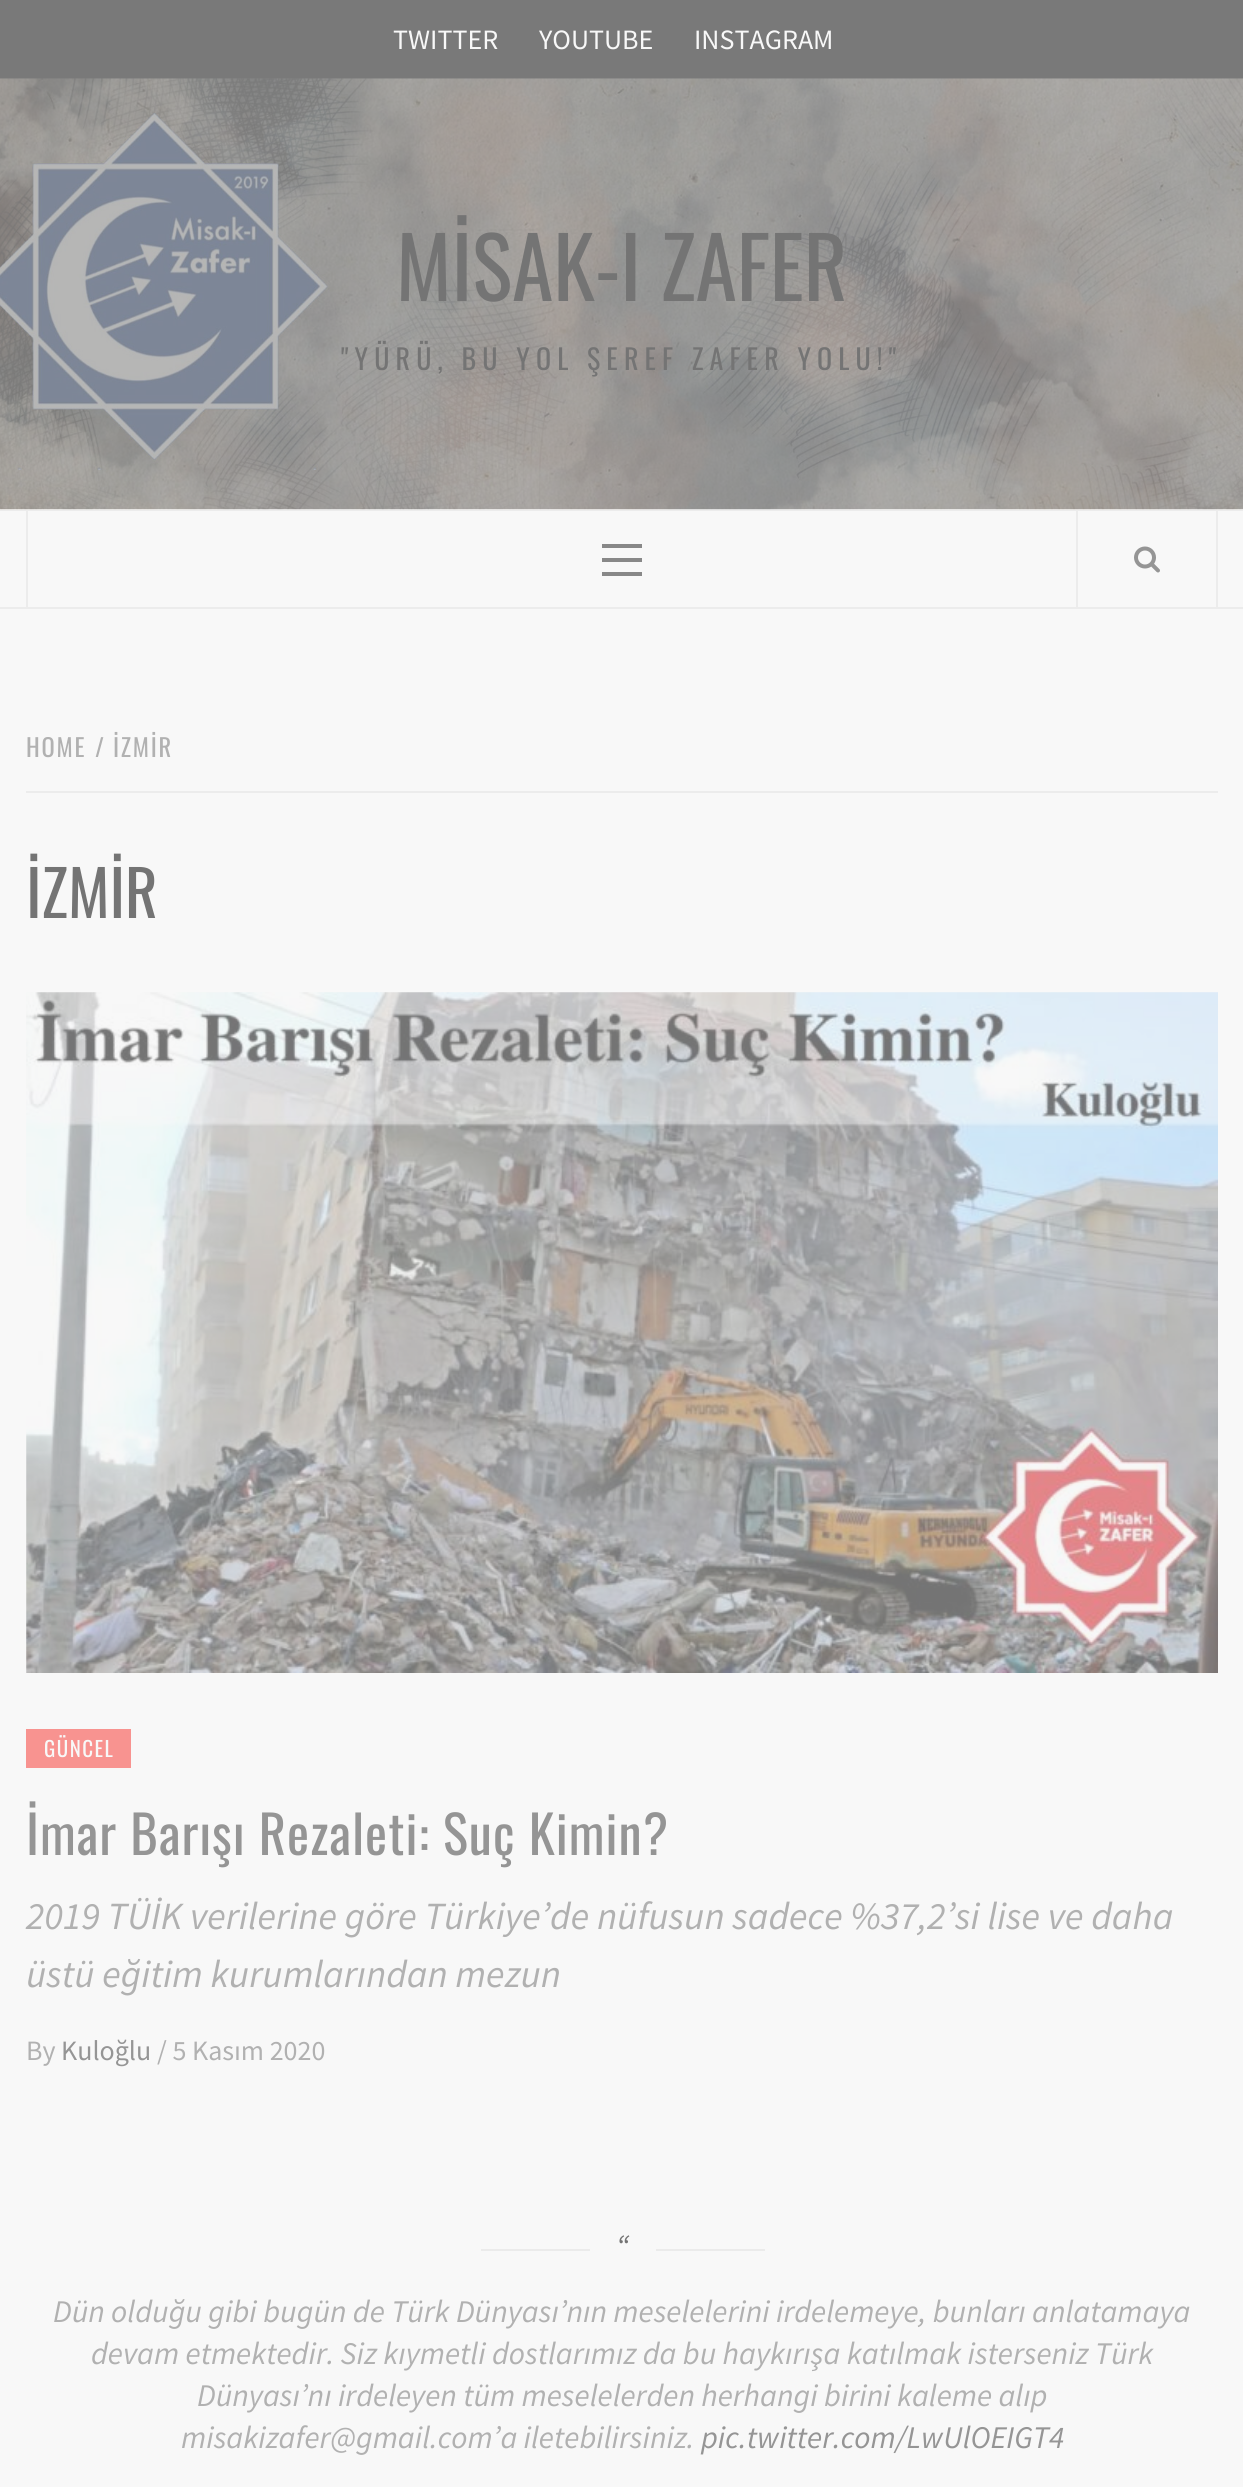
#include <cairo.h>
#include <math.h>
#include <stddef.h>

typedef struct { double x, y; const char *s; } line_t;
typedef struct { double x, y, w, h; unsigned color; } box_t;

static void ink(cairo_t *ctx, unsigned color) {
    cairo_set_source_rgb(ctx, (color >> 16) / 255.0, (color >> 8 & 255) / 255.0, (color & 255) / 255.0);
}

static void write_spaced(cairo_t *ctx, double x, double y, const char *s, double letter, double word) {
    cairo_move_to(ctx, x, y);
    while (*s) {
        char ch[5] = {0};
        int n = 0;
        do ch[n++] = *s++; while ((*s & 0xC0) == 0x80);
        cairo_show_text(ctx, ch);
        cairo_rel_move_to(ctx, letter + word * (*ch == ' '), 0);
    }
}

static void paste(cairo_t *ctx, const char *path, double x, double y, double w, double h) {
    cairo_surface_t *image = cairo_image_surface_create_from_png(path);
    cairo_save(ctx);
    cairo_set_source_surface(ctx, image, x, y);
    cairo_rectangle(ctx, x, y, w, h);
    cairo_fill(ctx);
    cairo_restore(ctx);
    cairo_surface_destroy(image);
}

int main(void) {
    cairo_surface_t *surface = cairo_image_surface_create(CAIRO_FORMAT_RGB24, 1243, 2487);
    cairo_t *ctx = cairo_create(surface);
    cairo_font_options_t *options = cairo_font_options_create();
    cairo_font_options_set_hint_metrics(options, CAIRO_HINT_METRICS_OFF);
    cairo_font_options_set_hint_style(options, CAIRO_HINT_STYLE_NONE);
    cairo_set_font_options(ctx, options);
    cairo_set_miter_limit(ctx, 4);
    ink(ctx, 0xF8F8F8);
    cairo_paint(ctx);
    ink(ctx, 0x797979);
    cairo_rectangle(ctx, 0, 0, 1243, 79);
    cairo_fill(ctx);
    cairo_select_font_face(ctx, "Source Sans Pro", CAIRO_FONT_SLANT_NORMAL, CAIRO_FONT_WEIGHT_NORMAL);
    cairo_set_font_size(ctx, 28);
    ink(ctx, 0xF8F8F8);
    {
        static const line_t items[] = {
            {393, 49, "TWITTER"},
            {539, 49, "YOUTUBE"},
            {694, 49, "INSTAGRAM"},
        };
        for (size_t i = 0; i < sizeof items / sizeof *items; i++) {
            cairo_move_to(ctx, items[i].x, items[i].y);
            cairo_show_text(ctx, items[i].s);
        }
    }
    ink(ctx, 0xECECEC);
    cairo_rectangle(ctx, 0, 509, 1243, 2);
    cairo_fill(ctx);
    paste(ctx, "media/1.png", 0, 78, 1243, 432);
    cairo_select_font_face(ctx, "Oswald", CAIRO_FONT_SLANT_NORMAL, CAIRO_FONT_WEIGHT_NORMAL);
    cairo_set_font_size(ctx, 84);
    ink(ctx, 0x747474);
    cairo_move_to(ctx, 396, 301);
    cairo_show_text(ctx, "MİSAK-I ZAFER");
    cairo_set_font_size(ctx, 28);
    write_spaced(ctx, 341, 370, "\"YÜRÜ, BU YOL ŞEREF ZAFER YOLU!\"", 6.15, 0);
    {
        static const box_t items[] = {
            {0, 607, 1243, 2, 0xECECEC},
            {1216, 511, 2, 96, 0xECECEC},
            {26, 511, 2, 96, 0xECECEC},
            {602, 558, 40, 4, 0x888888},
            {602, 544, 40, 4, 0x888888},
            {602, 572, 40, 4, 0x888888},
            {1076, 511, 2, 96, 0xECECEC},
        };
        for (size_t i = 0; i < sizeof items / sizeof *items; i++) {
            ink(ctx, items[i].color);
            cairo_rectangle(ctx, items[i].x, items[i].y, items[i].w, items[i].h);
            cairo_fill(ctx);
        }
    }
    paste(ctx, "media/2.png", 1134, 546, 26, 27);
    cairo_rectangle(ctx, 26, 791, 1192, 2);
    cairo_fill(ctx);
    cairo_set_font_size(ctx, 24.5);
    ink(ctx, 0xB1B1B1);
    {
        static const line_t items[] = {
            {26, 757, "HOME"},
            {95, 757, "/"},
            {113, 757, "İZMİR"},
        };
        for (size_t i = 0; i < sizeof items / sizeof *items; i++) {
            write_spaced(ctx, items[i].x, items[i].y, items[i].s, 1.75, 0);
        }
    }
    cairo_set_font_size(ctx, 63);
    ink(ctx, 0x747474);
    cairo_move_to(ctx, 26, 918);
    cairo_show_text(ctx, "İZMİR");
    paste(ctx, "media/3.png", 26, 992, 1192, 681);
    ink(ctx, 0xF89390);
    cairo_rectangle(ctx, 26, 1729, 105, 39);
    cairo_fill(ctx);
    cairo_set_font_size(ctx, 21);
    ink(ctx, 0xF8F8F8);
    write_spaced(ctx, 44, 1757, "GÜNCEL", 1.5, 0);
    cairo_set_font_size(ctx, 52.5);
    ink(ctx, 0x959595);
    write_spaced(ctx, 26, 1855, "İmar Barışı Rezaleti: Suç Kimin?", 1.05, 0);
    cairo_select_font_face(ctx, "Source Sans Pro", CAIRO_FONT_SLANT_ITALIC, CAIRO_FONT_WEIGHT_NORMAL);
    cairo_set_font_size(ctx, 38.5);
    ink(ctx, 0xB1B1B1);
    cairo_move_to(ctx, 26, 1929);
    cairo_show_text(ctx, "2019 TÜİK verilerine göre Türkiye’de nüfusun sadece %37,2’si lise ve daha");
    cairo_move_to(ctx, 26, 1987);
    cairo_show_text(ctx, "üstü eğitim kurumlarından mezun");
    cairo_select_font_face(ctx, "Source Sans Pro", CAIRO_FONT_SLANT_NORMAL, CAIRO_FONT_WEIGHT_NORMAL);
    cairo_set_font_size(ctx, 28);
    cairo_move_to(ctx, 26, 2060);
    cairo_show_text(ctx, "By");
    ink(ctx, 0x959595);
    cairo_move_to(ctx, 61, 2060);
    cairo_show_text(ctx, "Kuloğlu");
    ink(ctx, 0xB1B1B1);
    cairo_move_to(ctx, 157, 2060);
    cairo_show_text(ctx, "/ 5 Kasım 2020");
    ink(ctx, 0xEBEBEB);
    cairo_rectangle(ctx, 481, 2249, 284, 2);
    cairo_fill(ctx);
    ink(ctx, 0xF8F8F8);
    cairo_rectangle(ctx, 590, 2249, 66, 2);
    cairo_fill(ctx);
    cairo_select_font_face(ctx, "Source Sans Pro", CAIRO_FONT_SLANT_ITALIC, CAIRO_FONT_WEIGHT_NORMAL);
    cairo_set_font_size(ctx, 31.5);
    ink(ctx, 0x747474);
    cairo_move_to(ctx, 616, 2257);
    cairo_show_text(ctx, "“");
    ink(ctx, 0xB1B1B1);
    {
        static const line_t items[] = {
            {53, 2322, "Dün olduğu gibi bugün de Türk Dünyası’nın meselelerini irdelemeye, bunları anlatamaya"},
            {91, 2364, "devam etmektedir. Siz kıymetli dostlarımız da bu haykırışa katılmak isterseniz Türk"},
            {197, 2406, "Dünyası’nı irdeleyen tüm meselelerden herhangi birini kaleme alıp"},
            {181, 2448, "misakizafer@gmail.com’a iletebilirsiniz."},
        };
        for (size_t i = 0; i < sizeof items / sizeof *items; i++) {
            cairo_move_to(ctx, items[i].x, items[i].y);
            cairo_show_text(ctx, items[i].s);
        }
    }
    ink(ctx, 0x959595);
    cairo_move_to(ctx, 701, 2448);
    cairo_show_text(ctx, "pic.twitter.com/LwUlOEIGT4");
    cairo_surface_write_to_png(surface, "image.png");
    cairo_font_options_destroy(options);
    cairo_destroy(ctx);
    cairo_surface_destroy(surface);
    return 0;
}
